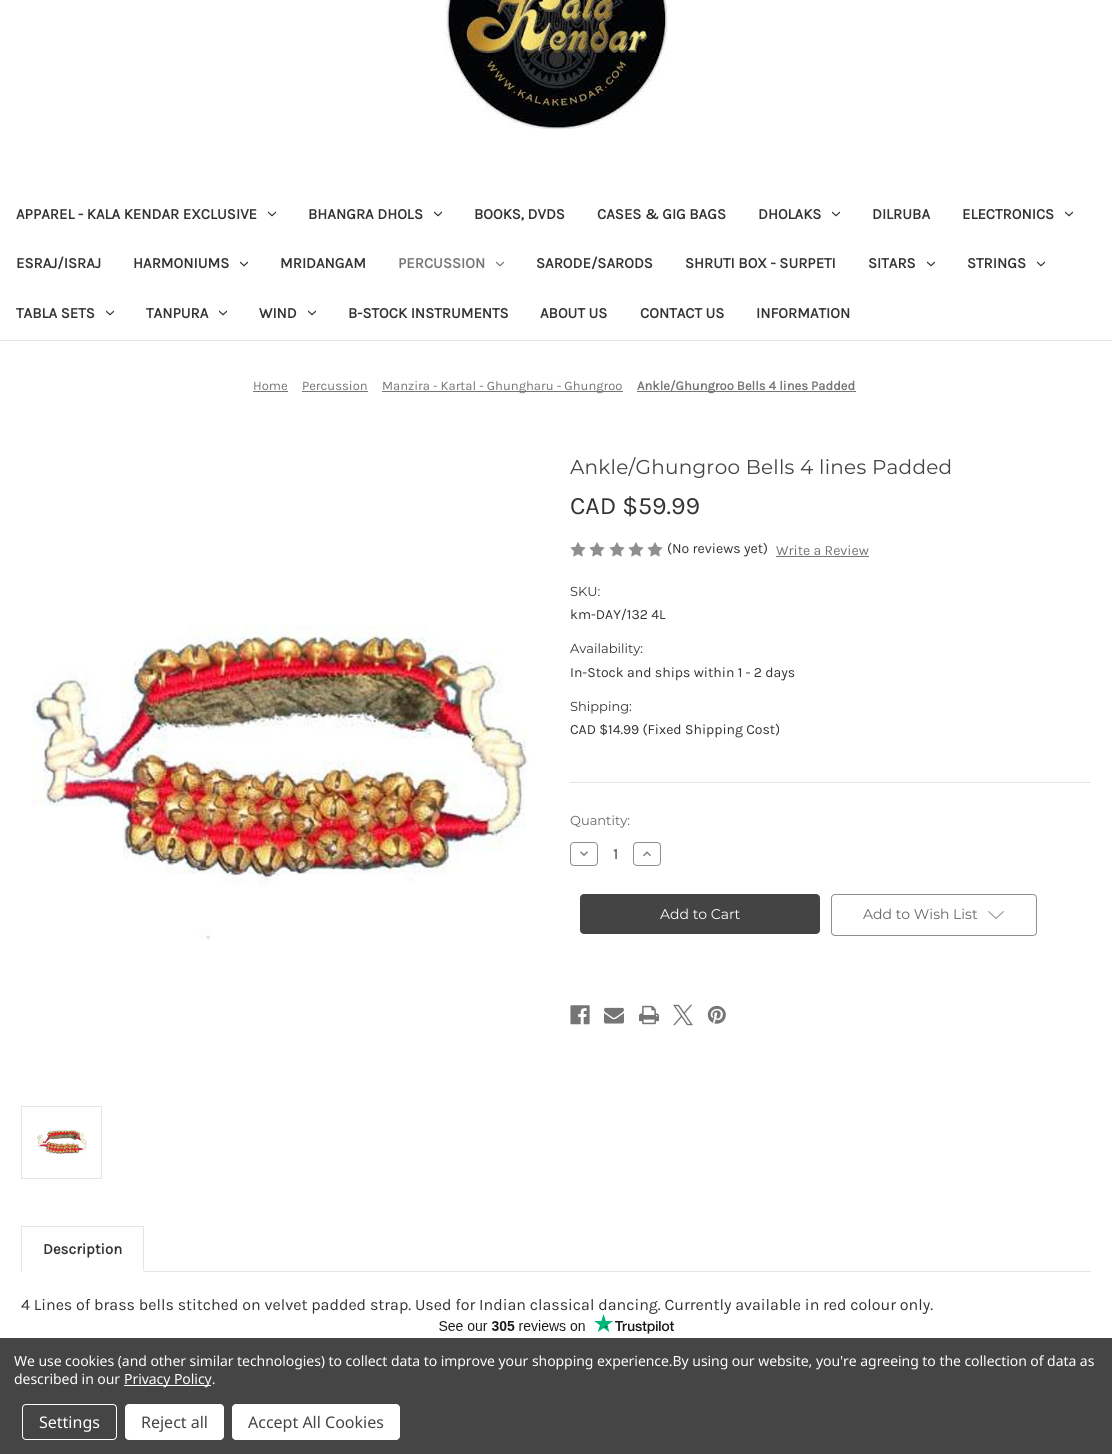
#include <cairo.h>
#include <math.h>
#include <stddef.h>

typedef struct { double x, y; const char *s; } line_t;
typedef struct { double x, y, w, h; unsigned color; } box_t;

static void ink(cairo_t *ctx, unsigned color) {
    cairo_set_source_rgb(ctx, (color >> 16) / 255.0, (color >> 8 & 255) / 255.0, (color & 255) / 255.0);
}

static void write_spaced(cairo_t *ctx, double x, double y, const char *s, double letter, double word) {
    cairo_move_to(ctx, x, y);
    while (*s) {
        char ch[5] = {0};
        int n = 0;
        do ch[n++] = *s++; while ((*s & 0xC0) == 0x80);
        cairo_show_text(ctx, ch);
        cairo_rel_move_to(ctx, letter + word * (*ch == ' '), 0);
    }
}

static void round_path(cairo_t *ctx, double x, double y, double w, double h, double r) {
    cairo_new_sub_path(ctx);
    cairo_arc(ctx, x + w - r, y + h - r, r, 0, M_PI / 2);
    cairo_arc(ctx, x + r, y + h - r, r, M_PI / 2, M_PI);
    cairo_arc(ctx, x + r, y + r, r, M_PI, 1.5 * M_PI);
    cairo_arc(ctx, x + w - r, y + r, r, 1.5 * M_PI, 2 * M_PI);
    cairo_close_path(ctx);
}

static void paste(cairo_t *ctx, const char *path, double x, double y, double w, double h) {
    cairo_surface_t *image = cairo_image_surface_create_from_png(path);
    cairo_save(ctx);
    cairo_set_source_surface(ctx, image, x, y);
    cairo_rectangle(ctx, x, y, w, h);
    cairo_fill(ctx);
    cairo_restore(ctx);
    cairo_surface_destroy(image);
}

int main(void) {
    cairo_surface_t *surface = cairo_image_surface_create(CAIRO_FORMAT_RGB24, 1112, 1454);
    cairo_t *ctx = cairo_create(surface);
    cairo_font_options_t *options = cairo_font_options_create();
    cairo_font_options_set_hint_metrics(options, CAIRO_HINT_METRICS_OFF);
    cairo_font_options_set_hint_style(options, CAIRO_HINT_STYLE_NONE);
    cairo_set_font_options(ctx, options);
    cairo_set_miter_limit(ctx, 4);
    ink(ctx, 0xFFFFFF);
    cairo_paint(ctx);
    ink(ctx, 0xE5E5E5);
    cairo_rectangle(ctx, 0, 340, 1112, 1);
    cairo_fill(ctx);
    paste(ctx, "media/1.png", 444, 0, 224, 129);
    cairo_select_font_face(ctx, "Karla", CAIRO_FONT_SLANT_NORMAL, CAIRO_FONT_WEIGHT_BOLD);
    cairo_set_font_size(ctx, 15);
    ink(ctx, 0x333333);
    cairo_move_to(ctx, 16, 219);
    cairo_show_text(ctx, "APPAREL - KALA KENDAR EXCLUSIVE");
    paste(ctx, "media/2.png", 268, 211, 8, 6);
    cairo_move_to(ctx, 308, 219);
    cairo_show_text(ctx, "BHANGRA DHOLS");
    paste(ctx, "media/2.png", 434, 211, 8, 6);
    {
        static const line_t items[] = {
            {474, 219, "BOOKS, DVDS"},
            {597, 219, "CASES & GIG BAGS"},
            {758, 219, "DHOLAKS"},
        };
        for (size_t i = 0; i < sizeof items / sizeof *items; i++) {
            cairo_move_to(ctx, items[i].x, items[i].y);
            cairo_show_text(ctx, items[i].s);
        }
    }
    paste(ctx, "media/2.png", 832, 211, 8, 6);
    cairo_move_to(ctx, 872, 219);
    cairo_show_text(ctx, "DILRUBA");
    cairo_move_to(ctx, 962, 219);
    cairo_show_text(ctx, "ELECTRONICS");
    paste(ctx, "media/2.png", 1065, 211, 8, 6);
    cairo_move_to(ctx, 16, 268);
    cairo_show_text(ctx, "ESRAJ/ISRAJ");
    cairo_move_to(ctx, 133, 268);
    cairo_show_text(ctx, "HARMONIUMS");
    paste(ctx, "media/2.png", 240, 261, 8, 6);
    cairo_move_to(ctx, 280, 268);
    cairo_show_text(ctx, "MRIDANGAM");
    ink(ctx, 0x757575);
    cairo_move_to(ctx, 398, 268);
    cairo_show_text(ctx, "PERCUSSION");
    paste(ctx, "media/3.png", 496, 261, 8, 6);
    ink(ctx, 0x333333);
    {
        static const line_t items[] = {
            {536, 268, "SARODE/SARODS"},
            {685, 268, "SHRUTI BOX - SURPETI"},
            {868, 268, "SITARS"},
        };
        for (size_t i = 0; i < sizeof items / sizeof *items; i++) {
            cairo_move_to(ctx, items[i].x, items[i].y);
            cairo_show_text(ctx, items[i].s);
        }
    }
    paste(ctx, "media/2.png", 927, 261, 8, 6);
    cairo_move_to(ctx, 967, 268);
    cairo_show_text(ctx, "STRINGS");
    paste(ctx, "media/2.png", 1037, 261, 8, 6);
    cairo_move_to(ctx, 16, 318);
    cairo_show_text(ctx, "TABLA SETS");
    paste(ctx, "media/2.png", 106, 310, 8, 6);
    cairo_move_to(ctx, 146, 318);
    cairo_show_text(ctx, "TANPURA");
    paste(ctx, "media/2.png", 219, 310, 8, 6);
    cairo_move_to(ctx, 259, 318);
    cairo_show_text(ctx, "WIND");
    paste(ctx, "media/2.png", 308, 310, 8, 6);
    {
        static const line_t items[] = {
            {348, 318, "B-STOCK INSTRUMENTS"},
            {540, 318, "ABOUT US"},
            {640, 318, "CONTACT US"},
            {756, 318, "INFORMATION"},
        };
        for (size_t i = 0; i < sizeof items / sizeof *items; i++) {
            cairo_move_to(ctx, items[i].x, items[i].y);
            cairo_show_text(ctx, items[i].s);
        }
    }
    cairo_select_font_face(ctx, "Karla", CAIRO_FONT_SLANT_NORMAL, CAIRO_FONT_WEIGHT_NORMAL);
    cairo_set_font_size(ctx, 13);
    ink(ctx, 0x757575);
    cairo_move_to(ctx, 253, 390);
    cairo_show_text(ctx, "Home");
    cairo_rectangle(ctx, 253, 391, 35, 1);
    cairo_fill(ctx);
    cairo_move_to(ctx, 302, 390);
    cairo_show_text(ctx, "Percussion");
    cairo_rectangle(ctx, 302, 391, 66, 1);
    cairo_fill(ctx);
    cairo_rectangle(ctx, 382, 391, 241, 1);
    cairo_fill(ctx);
    cairo_move_to(ctx, 382, 390);
    cairo_show_text(ctx, "Manzira - Kartal - Ghungharu - Ghungroo");
    cairo_rectangle(ctx, 637, 391, 219, 1);
    cairo_fill(ctx);
    cairo_select_font_face(ctx, "Karla", CAIRO_FONT_SLANT_NORMAL, CAIRO_FONT_WEIGHT_BOLD);
    cairo_move_to(ctx, 637, 390);
    cairo_show_text(ctx, "Ankle/Ghungroo Bells 4 lines Padded");
    paste(ctx, "media/4.png", 32, 625, 497, 315);
    cairo_rectangle(ctx, 21.5, 1106.5, 80, 72);
    ink(ctx, 0xE5E5E5);
    cairo_set_line_width(ctx, 1);
    cairo_stroke(ctx);
    paste(ctx, "media/5.png", 37, 1130, 50, 25);
    cairo_rectangle(ctx, 570, 782, 521, 1);
    cairo_fill(ctx);
    cairo_select_font_face(ctx, "Montserrat", CAIRO_FONT_SLANT_NORMAL, CAIRO_FONT_WEIGHT_NORMAL);
    cairo_set_font_size(ctx, 20);
    ink(ctx, 0x444444);
    write_spaced(ctx, 570, 474, "Ankle/Ghungroo Bells 4 lines Padded", 0.25, 0);
    cairo_select_font_face(ctx, "Karla", CAIRO_FONT_SLANT_NORMAL, CAIRO_FONT_WEIGHT_NORMAL);
    cairo_set_font_size(ctx, 25);
    ink(ctx, 0x333333);
    cairo_move_to(ctx, 570, 514);
    cairo_show_text(ctx, "CAD $59.99");
    paste(ctx, "media/6.png", 570, 542, 16, 15);
    paste(ctx, "media/6.png", 589, 542, 16, 15);
    paste(ctx, "media/6.png", 609, 542, 16, 15);
    paste(ctx, "media/6.png", 628, 542, 16, 15);
    paste(ctx, "media/6.png", 647, 542, 16, 15);
    cairo_set_font_size(ctx, 14);
    cairo_move_to(ctx, 667, 553);
    cairo_show_text(ctx, "(No reviews yet)");
    ink(ctx, 0x757575);
    cairo_move_to(ctx, 776, 555);
    cairo_show_text(ctx, "Write a Review");
    cairo_rectangle(ctx, 776, 556, 93, 1);
    cairo_fill(ctx);
    cairo_select_font_face(ctx, "Montserrat", CAIRO_FONT_SLANT_NORMAL, CAIRO_FONT_WEIGHT_NORMAL);
    cairo_set_font_size(ctx, 13);
    ink(ctx, 0x333333);
    cairo_move_to(ctx, 570, 596);
    cairo_show_text(ctx, "SKU:");
    cairo_select_font_face(ctx, "Karla", CAIRO_FONT_SLANT_NORMAL, CAIRO_FONT_WEIGHT_NORMAL);
    cairo_set_font_size(ctx, 14);
    cairo_move_to(ctx, 570, 619);
    cairo_show_text(ctx, "km-DAY/132 4L");
    cairo_select_font_face(ctx, "Montserrat", CAIRO_FONT_SLANT_NORMAL, CAIRO_FONT_WEIGHT_NORMAL);
    cairo_set_font_size(ctx, 13);
    cairo_move_to(ctx, 570, 653);
    cairo_show_text(ctx, "Availability:");
    cairo_select_font_face(ctx, "Karla", CAIRO_FONT_SLANT_NORMAL, CAIRO_FONT_WEIGHT_NORMAL);
    cairo_set_font_size(ctx, 14);
    cairo_move_to(ctx, 570, 677);
    cairo_show_text(ctx, "In-Stock and ships within 1 - 2 days");
    cairo_select_font_face(ctx, "Montserrat", CAIRO_FONT_SLANT_NORMAL, CAIRO_FONT_WEIGHT_NORMAL);
    cairo_set_font_size(ctx, 13);
    cairo_move_to(ctx, 570, 711);
    cairo_show_text(ctx, "Shipping:");
    cairo_select_font_face(ctx, "Karla", CAIRO_FONT_SLANT_NORMAL, CAIRO_FONT_WEIGHT_NORMAL);
    cairo_set_font_size(ctx, 14);
    cairo_move_to(ctx, 570, 734);
    cairo_show_text(ctx, "CAD $14.99 (Fixed Shipping Cost)");
    cairo_select_font_face(ctx, "Montserrat", CAIRO_FONT_SLANT_NORMAL, CAIRO_FONT_WEIGHT_NORMAL);
    cairo_set_font_size(ctx, 13);
    ink(ctx, 0x666666);
    cairo_move_to(ctx, 570, 825);
    cairo_show_text(ctx, "Quantity:");
    round_path(ctx, 570.5, 842.5, 27, 23, 3.5);
    ink(ctx, 0x8F8F8F);
    cairo_stroke(ctx);
    paste(ctx, "media/7.png", 580, 851, 8, 5);
    cairo_select_font_face(ctx, "Karla", CAIRO_FONT_SLANT_NORMAL, CAIRO_FONT_WEIGHT_BOLD);
    cairo_set_font_size(ctx, 15);
    ink(ctx, 0x666666);
    cairo_move_to(ctx, 613, 859);
    cairo_show_text(ctx, "1");
    round_path(ctx, 633.5, 842.5, 27, 23, 3.5);
    ink(ctx, 0x8F8F8F);
    cairo_stroke(ctx);
    paste(ctx, "media/8.png", 643, 851, 8, 6);
    ink(ctx, 0x444444);
    round_path(ctx, 580.5, 894.5, 239, 39, 3.5);
    cairo_fill_preserve(ctx);
    cairo_stroke(ctx);
    cairo_select_font_face(ctx, "Montserrat", CAIRO_FONT_SLANT_NORMAL, CAIRO_FONT_WEIGHT_NORMAL);
    cairo_set_font_size(ctx, 14);
    ink(ctx, 0xFFFFFF);
    cairo_move_to(ctx, 660, 919);
    cairo_show_text(ctx, "Add to Cart");
    round_path(ctx, 831.5, 894.5, 205, 41, 3.5);
    ink(ctx, 0x8F8F8F);
    cairo_stroke(ctx);
    ink(ctx, 0x666666);
    cairo_move_to(ctx, 863, 919);
    cairo_show_text(ctx, "Add to Wish List");
    paste(ctx, "media/9.png", 988, 911, 16, 8);
    paste(ctx, "media/10.png", 570, 1005, 20, 20);
    paste(ctx, "media/11.png", 604, 1007, 20, 17);
    paste(ctx, "media/12.png", 639, 1005, 20, 20);
    paste(ctx, "media/13.png", 673, 1004, 20, 22);
    paste(ctx, "media/14.png", 707, 1005, 19, 19);
    {
        static const box_t items[] = {
            {144, 1271, 947, 1, 0xE5E5E5},
            {21, 1226, 123, 1, 0xE5E5E5},
            {143, 1226, 1, 46, 0xE5E5E5},
            {143, 1271, 1, 1, 0xFFFFFF},
            {21, 1226, 1, 46, 0xE5E5E5},
        };
        for (size_t i = 0; i < sizeof items / sizeof *items; i++) {
            ink(ctx, items[i].color);
            cairo_rectangle(ctx, items[i].x, items[i].y, items[i].w, items[i].h);
            cairo_fill(ctx);
        }
    }
    cairo_select_font_face(ctx, "Karla", CAIRO_FONT_SLANT_NORMAL, CAIRO_FONT_WEIGHT_BOLD);
    cairo_set_font_size(ctx, 15);
    ink(ctx, 0x333333);
    cairo_move_to(ctx, 43, 1254);
    cairo_show_text(ctx, "Description");
    cairo_select_font_face(ctx, "Karla", CAIRO_FONT_SLANT_NORMAL, CAIRO_FONT_WEIGHT_NORMAL);
    cairo_set_font_size(ctx, 16);
    cairo_move_to(ctx, 21, 1310);
    cairo_show_text(ctx, "4 Lines of brass bells stitched on velvet padded strap. Used for Indian classical dancing. Currently available in red colour only.");
    paste(ctx, "media/15.png", 439, 1314, 235, 20);
    ink(ctx, 0x454545);
    cairo_rectangle(ctx, 0, 1338, 1112, 116);
    cairo_fill(ctx);
    cairo_select_font_face(ctx, "Noto Sans", CAIRO_FONT_SLANT_NORMAL, CAIRO_FONT_WEIGHT_NORMAL);
    cairo_set_font_size(ctx, 14);
    ink(ctx, 0xFFFFFF);
    write_spaced(ctx, 14, 1366, "We use cookies (and other similar technologies) to collect data to improve your shopping experience.By using our website, you're agreeing to the collection of data as", -0.05, 0);
    write_spaced(ctx, 14, 1384, "described in our", -0.05, 0);
    cairo_rectangle(ctx, 124, 1385, 87, 1);
    cairo_fill(ctx);
    write_spaced(ctx, 124, 1384, "Privacy Policy.", -0.05, 0);
    round_path(ctx, 22.5, 1404.5, 94, 35, 3.5);
    cairo_stroke(ctx);
    cairo_set_font_size(ctx, 16);
    cairo_move_to(ctx, 39, 1428);
    cairo_show_text(ctx, "Settings");
    round_path(ctx, 125, 1404, 99, 36, 4);
    cairo_fill(ctx);
    ink(ctx, 0x444444);
    cairo_move_to(ctx, 141, 1428);
    cairo_show_text(ctx, "Reject all");
    ink(ctx, 0xFFFFFF);
    round_path(ctx, 232, 1404, 168, 36, 4);
    cairo_fill(ctx);
    ink(ctx, 0x444444);
    cairo_move_to(ctx, 248, 1428);
    cairo_show_text(ctx, "Accept All Cookies");
    cairo_surface_write_to_png(surface, "image.png");
    cairo_font_options_destroy(options);
    cairo_destroy(ctx);
    cairo_surface_destroy(surface);
    return 0;
}
